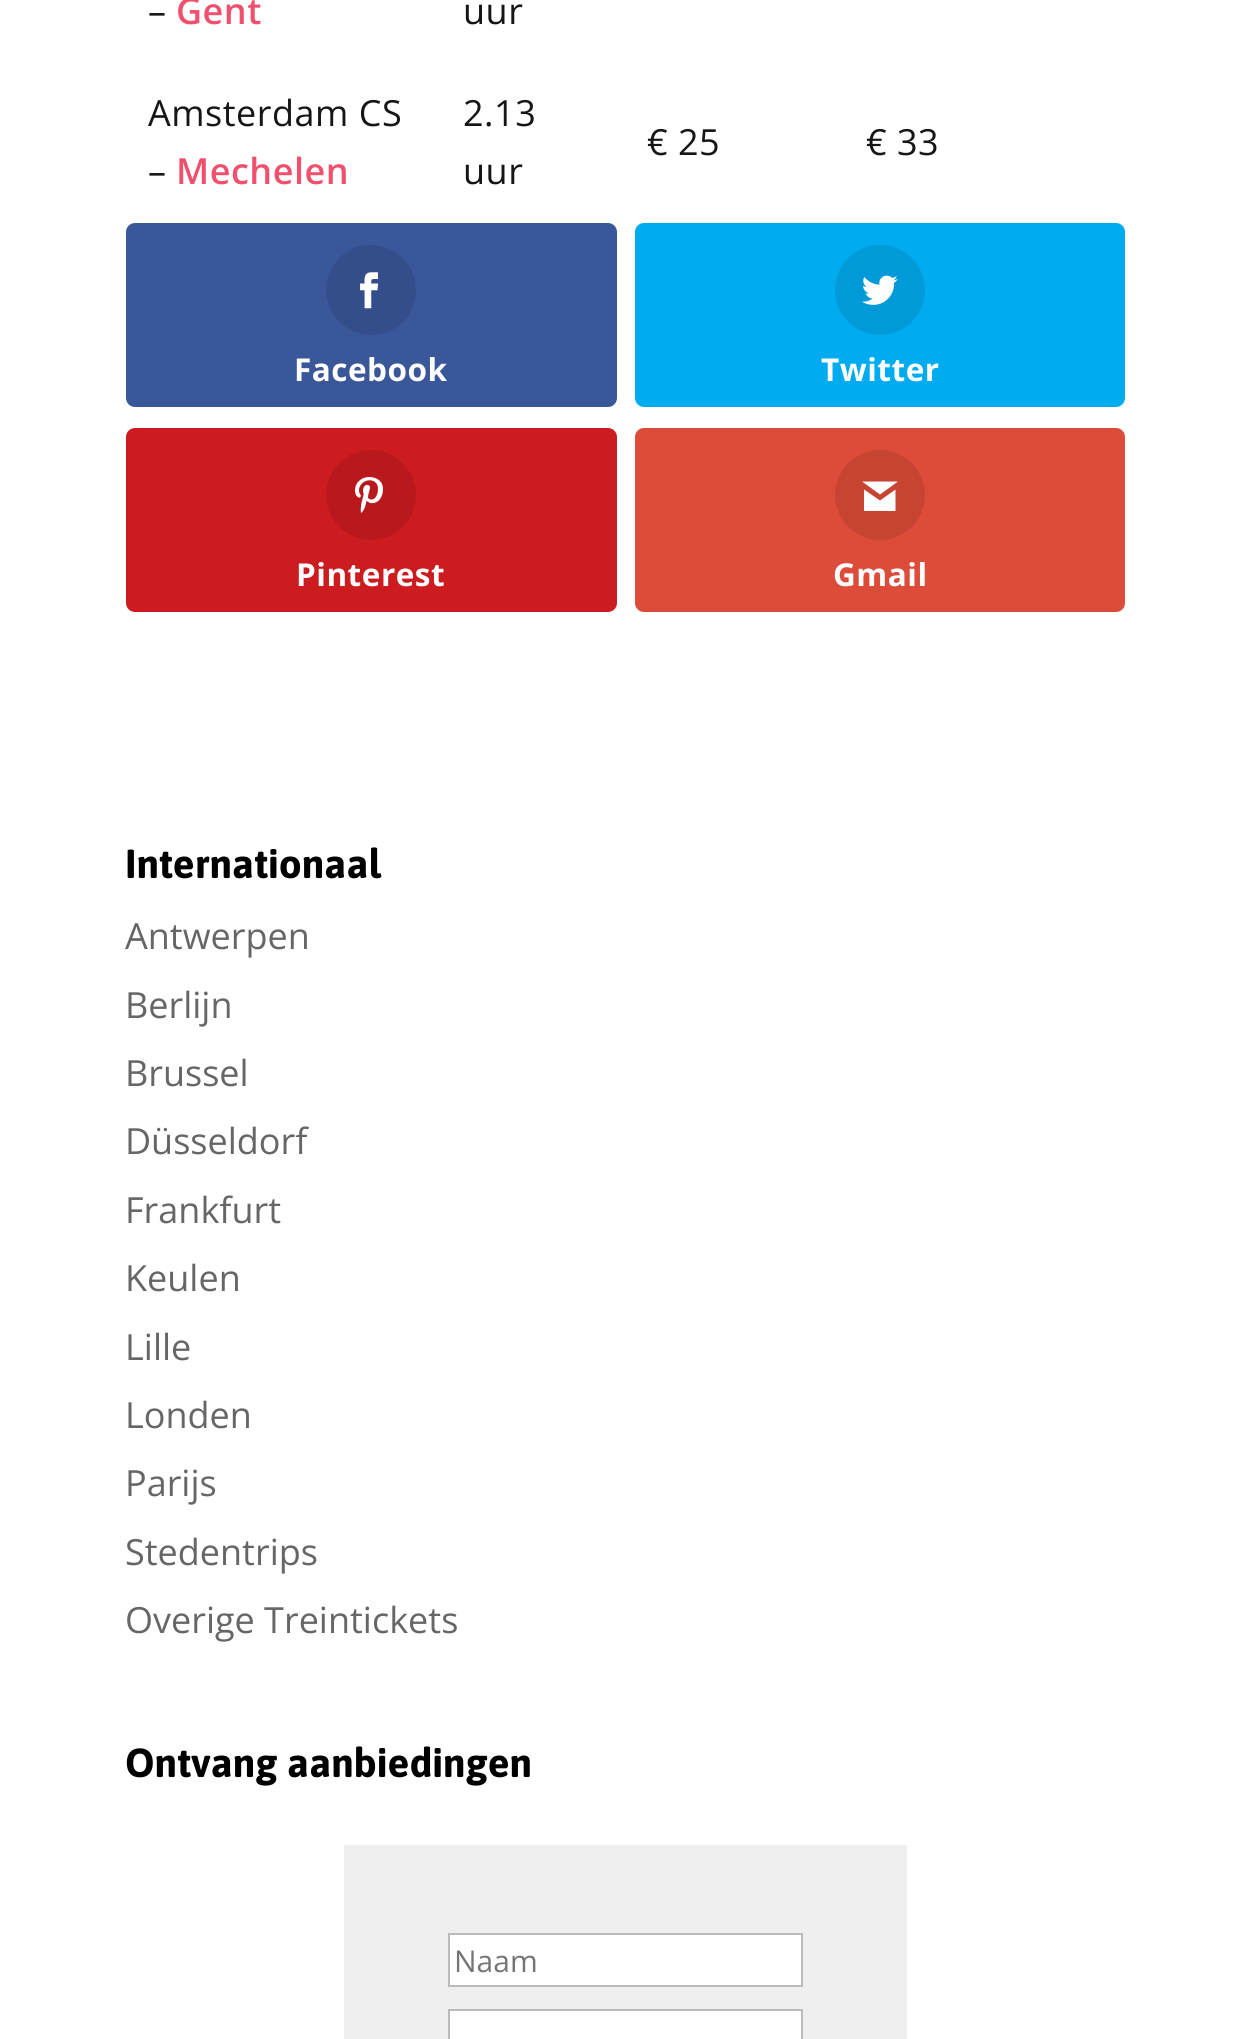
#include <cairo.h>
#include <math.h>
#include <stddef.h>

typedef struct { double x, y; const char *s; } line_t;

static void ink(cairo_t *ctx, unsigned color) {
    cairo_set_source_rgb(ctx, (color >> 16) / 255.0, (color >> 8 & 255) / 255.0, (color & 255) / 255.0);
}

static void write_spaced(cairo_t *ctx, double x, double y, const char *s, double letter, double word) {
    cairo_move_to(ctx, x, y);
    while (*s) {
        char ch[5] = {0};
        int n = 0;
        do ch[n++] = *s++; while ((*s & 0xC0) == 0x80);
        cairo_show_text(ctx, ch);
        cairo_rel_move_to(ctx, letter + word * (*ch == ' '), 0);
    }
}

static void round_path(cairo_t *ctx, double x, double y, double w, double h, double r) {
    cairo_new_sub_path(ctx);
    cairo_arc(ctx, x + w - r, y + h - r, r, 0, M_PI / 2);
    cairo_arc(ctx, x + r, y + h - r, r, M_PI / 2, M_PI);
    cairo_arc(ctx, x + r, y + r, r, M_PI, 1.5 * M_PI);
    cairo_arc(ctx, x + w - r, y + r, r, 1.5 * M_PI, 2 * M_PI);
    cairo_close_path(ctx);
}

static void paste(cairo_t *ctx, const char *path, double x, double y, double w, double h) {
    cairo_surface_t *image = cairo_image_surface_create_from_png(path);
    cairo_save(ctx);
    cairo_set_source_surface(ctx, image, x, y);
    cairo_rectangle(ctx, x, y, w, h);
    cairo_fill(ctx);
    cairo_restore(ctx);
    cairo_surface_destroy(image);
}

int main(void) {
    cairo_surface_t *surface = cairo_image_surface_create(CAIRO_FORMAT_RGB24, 1251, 2039);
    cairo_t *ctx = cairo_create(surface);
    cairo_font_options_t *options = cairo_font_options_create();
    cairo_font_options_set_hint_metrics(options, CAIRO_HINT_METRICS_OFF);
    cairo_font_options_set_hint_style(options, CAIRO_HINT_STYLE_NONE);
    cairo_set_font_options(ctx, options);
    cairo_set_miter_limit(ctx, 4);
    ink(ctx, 0xFFFFFF);
    cairo_paint(ctx);
    cairo_select_font_face(ctx, "Open Sans", CAIRO_FONT_SLANT_NORMAL, CAIRO_FONT_WEIGHT_NORMAL);
    cairo_set_font_size(ctx, 36);
    ink(ctx, 0x161616);
    write_spaced(ctx, 148, 24, "–", 0.5, 0);
    cairo_select_font_face(ctx, "Open Sans SemiBold", CAIRO_FONT_SLANT_NORMAL, CAIRO_FONT_WEIGHT_NORMAL);
    ink(ctx, 0xF0506E);
    write_spaced(ctx, 176, 24, "Gent", 0.5, 0);
    cairo_select_font_face(ctx, "Open Sans", CAIRO_FONT_SLANT_NORMAL, CAIRO_FONT_WEIGHT_NORMAL);
    ink(ctx, 0x161616);
    {
        static const line_t items[] = {
            {463, 24, "uur"},
            {148, 126, "Amsterdam CS"},
            {148, 184, "–"},
        };
        for (size_t i = 0; i < sizeof items / sizeof *items; i++) {
            write_spaced(ctx, items[i].x, items[i].y, items[i].s, 0.5, 0);
        }
    }
    cairo_select_font_face(ctx, "Open Sans SemiBold", CAIRO_FONT_SLANT_NORMAL, CAIRO_FONT_WEIGHT_NORMAL);
    ink(ctx, 0xF0506E);
    write_spaced(ctx, 176, 184, "Mechelen", 0.5, 0);
    cairo_select_font_face(ctx, "Open Sans", CAIRO_FONT_SLANT_NORMAL, CAIRO_FONT_WEIGHT_NORMAL);
    ink(ctx, 0x161616);
    {
        static const line_t items[] = {
            {463, 126, "2.13"},
            {463, 184, "uur"},
            {647, 155, "€ 25"},
            {866, 155, "€ 33"},
        };
        for (size_t i = 0; i < sizeof items / sizeof *items; i++) {
            write_spaced(ctx, items[i].x, items[i].y, items[i].s, 0.5, 0);
        }
    }
    ink(ctx, 0x3A579A);
    round_path(ctx, 126, 223, 491, 184, 9);
    cairo_fill(ctx);
    ink(ctx, 0x344E8B);
    cairo_arc(ctx, 371, 290, 45, 0, 2 * M_PI);
    cairo_fill(ctx);
    paste(ctx, "media/1.png", 360, 272, 19, 37);
    cairo_select_font_face(ctx, "Open Sans", CAIRO_FONT_SLANT_NORMAL, CAIRO_FONT_WEIGHT_BOLD);
    cairo_set_font_size(ctx, 31.5);
    ink(ctx, 0xFFFFFF);
    write_spaced(ctx, 294, 381, "Facebook", 0.5, 0);
    ink(ctx, 0x00ABF0);
    round_path(ctx, 635, 223, 490, 184, 9);
    cairo_fill(ctx);
    ink(ctx, 0x009AD8);
    cairo_arc(ctx, 880, 290, 45, 0, 2 * M_PI);
    cairo_fill(ctx);
    paste(ctx, "media/2.png", 862, 275, 36, 30);
    ink(ctx, 0xFFFFFF);
    write_spaced(ctx, 821, 381, "Twitter", 0.5, 0);
    ink(ctx, 0xCD1C1F);
    round_path(ctx, 126, 428, 491, 184, 9);
    cairo_fill(ctx);
    ink(ctx, 0xB9191C);
    cairo_arc(ctx, 371, 495, 45, 0, 2 * M_PI);
    cairo_fill(ctx);
    paste(ctx, "media/3.png", 355, 477, 28, 36);
    ink(ctx, 0xFFFFFF);
    write_spaced(ctx, 296, 586, "Pinterest", 0.5, 0);
    ink(ctx, 0xDD4B39);
    round_path(ctx, 635, 428, 490, 184, 9);
    cairo_fill(ctx);
    ink(ctx, 0xC74433);
    cairo_arc(ctx, 880, 495, 45, 0, 2 * M_PI);
    cairo_fill(ctx);
    ink(ctx, 0xFFFFFF);
    cairo_new_path(ctx);
    cairo_move_to(ctx, 898, 481.5);
    cairo_line_to(ctx, 862, 481.5);
    cairo_line_to(ctx, 880, 494.5);
    cairo_close_path(ctx);
    cairo_move_to(ctx, 880, 500.5);
    cairo_line_to(ctx, 864, 489.5);
    cairo_line_to(ctx, 864, 511);
    cairo_line_to(ctx, 895.5, 511);
    cairo_line_to(ctx, 895.5, 489.5);
    cairo_close_path(ctx);
    cairo_fill(ctx);
    write_spaced(ctx, 833, 586, "Gmail", 0.5, 0);
    cairo_select_font_face(ctx, "Asap", CAIRO_FONT_SLANT_NORMAL, CAIRO_FONT_WEIGHT_BOLD);
    cairo_set_font_size(ctx, 40.5);
    ink(ctx, 0x000000);
    cairo_move_to(ctx, 125, 878);
    cairo_show_text(ctx, "Internationaal");
    cairo_select_font_face(ctx, "Open Sans", CAIRO_FONT_SLANT_NORMAL, CAIRO_FONT_WEIGHT_NORMAL);
    cairo_set_font_size(ctx, 36);
    ink(ctx, 0x666666);
    {
        static const line_t items[] = {
            {125, 949, "Antwerpen"},
            {125, 1018, "Berlijn"},
            {125, 1086, "Brussel"},
            {125, 1154, "Düsseldorf"},
            {125, 1223, "Frankfurt"},
            {125, 1291, "Keulen"},
            {125, 1360, "Lille"},
            {125, 1428, "Londen"},
            {125, 1496, "Parijs"},
            {125, 1565, "Stedentrips"},
            {125, 1633, "Overige Treintickets"},
        };
        for (size_t i = 0; i < sizeof items / sizeof *items; i++) {
            cairo_move_to(ctx, items[i].x, items[i].y);
            cairo_show_text(ctx, items[i].s);
        }
    }
    cairo_select_font_face(ctx, "Asap", CAIRO_FONT_SLANT_NORMAL, CAIRO_FONT_WEIGHT_BOLD);
    cairo_set_font_size(ctx, 40.5);
    ink(ctx, 0x000000);
    cairo_move_to(ctx, 125, 1777);
    cairo_show_text(ctx, "Ontvang aanbiedingen");
    ink(ctx, 0xEFEFEF);
    cairo_rectangle(ctx, 344, 1845, 563, 194);
    cairo_fill(ctx);
    ink(ctx, 0xFFFFFF);
    cairo_rectangle(ctx, 449, 1934, 353, 52);
    cairo_fill_preserve(ctx);
    ink(ctx, 0xBBBBBB);
    cairo_stroke(ctx);
    cairo_select_font_face(ctx, "Open Sans", CAIRO_FONT_SLANT_NORMAL, CAIRO_FONT_WEIGHT_NORMAL);
    cairo_set_font_size(ctx, 30);
    ink(ctx, 0x757575);
    cairo_move_to(ctx, 454, 1972);
    cairo_show_text(ctx, "Naam");
    ink(ctx, 0xFFFFFF);
    cairo_rectangle(ctx, 449, 2010, 353, 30);
    cairo_fill_preserve(ctx);
    ink(ctx, 0xBBBBBB);
    cairo_stroke(ctx);
    cairo_surface_write_to_png(surface, "image.png");
    cairo_font_options_destroy(options);
    cairo_destroy(ctx);
    cairo_surface_destroy(surface);
    return 0;
}
